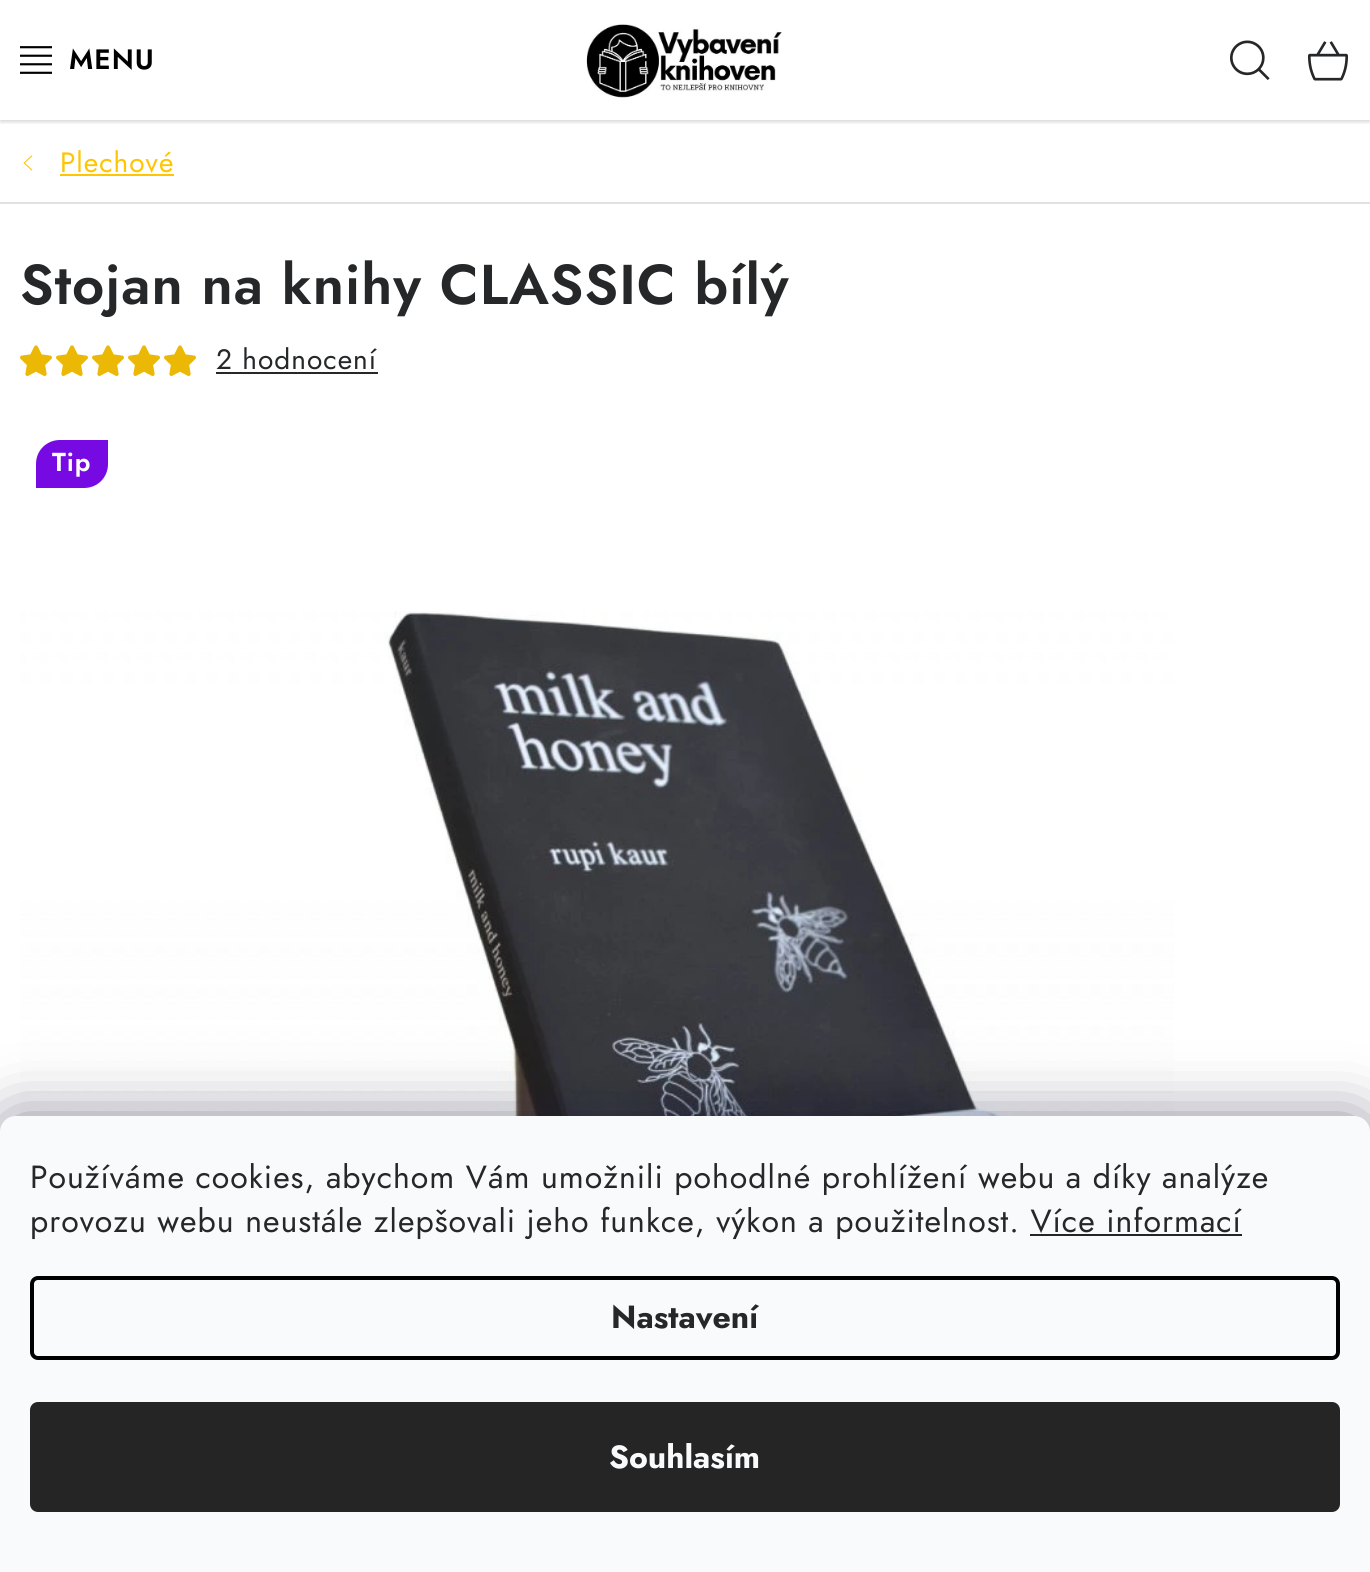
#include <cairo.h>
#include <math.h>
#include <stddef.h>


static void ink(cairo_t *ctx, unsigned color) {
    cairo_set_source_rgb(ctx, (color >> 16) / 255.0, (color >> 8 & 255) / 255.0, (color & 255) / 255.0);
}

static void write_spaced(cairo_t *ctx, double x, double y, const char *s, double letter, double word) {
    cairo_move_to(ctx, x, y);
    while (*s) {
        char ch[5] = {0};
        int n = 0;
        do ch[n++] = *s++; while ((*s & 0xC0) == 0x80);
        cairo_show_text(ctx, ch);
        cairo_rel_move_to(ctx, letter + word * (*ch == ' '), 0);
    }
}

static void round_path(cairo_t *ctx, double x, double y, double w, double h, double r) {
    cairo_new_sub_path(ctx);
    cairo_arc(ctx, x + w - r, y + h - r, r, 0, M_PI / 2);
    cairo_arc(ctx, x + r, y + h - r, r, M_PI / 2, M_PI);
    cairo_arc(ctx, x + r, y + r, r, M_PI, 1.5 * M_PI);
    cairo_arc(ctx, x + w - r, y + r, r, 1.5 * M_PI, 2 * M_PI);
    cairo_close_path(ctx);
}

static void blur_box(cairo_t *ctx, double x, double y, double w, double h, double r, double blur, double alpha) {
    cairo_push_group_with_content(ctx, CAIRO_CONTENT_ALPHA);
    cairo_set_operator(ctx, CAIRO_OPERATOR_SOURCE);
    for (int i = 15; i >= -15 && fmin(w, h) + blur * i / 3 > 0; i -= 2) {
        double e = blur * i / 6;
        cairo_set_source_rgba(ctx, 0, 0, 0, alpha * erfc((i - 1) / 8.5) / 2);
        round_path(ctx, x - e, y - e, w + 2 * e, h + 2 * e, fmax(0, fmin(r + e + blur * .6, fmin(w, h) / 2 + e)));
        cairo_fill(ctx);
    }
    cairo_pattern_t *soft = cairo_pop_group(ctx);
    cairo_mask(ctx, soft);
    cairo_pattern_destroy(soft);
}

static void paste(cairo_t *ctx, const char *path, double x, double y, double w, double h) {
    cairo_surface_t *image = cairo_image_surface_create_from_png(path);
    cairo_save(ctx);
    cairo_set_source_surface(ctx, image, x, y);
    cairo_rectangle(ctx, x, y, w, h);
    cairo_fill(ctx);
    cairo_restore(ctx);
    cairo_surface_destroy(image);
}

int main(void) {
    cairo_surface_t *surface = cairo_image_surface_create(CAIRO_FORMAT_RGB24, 1370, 1572);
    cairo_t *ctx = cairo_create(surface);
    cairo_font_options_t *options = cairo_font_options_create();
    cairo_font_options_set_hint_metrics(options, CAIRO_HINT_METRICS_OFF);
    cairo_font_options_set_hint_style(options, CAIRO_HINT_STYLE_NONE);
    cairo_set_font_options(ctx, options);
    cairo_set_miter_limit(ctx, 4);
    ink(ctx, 0xFFFFFF);
    cairo_paint(ctx);
    cairo_save(ctx);
    cairo_rectangle(ctx, 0, 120, 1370, 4);
    cairo_clip(ctx);
    ink(ctx, 0x000000);
    blur_box(ctx, 0, 2, 1370, 120, 0, 2, 0.16);
    cairo_restore(ctx);
    paste(ctx, "media/1.png", 20, 46, 32, 28);
    cairo_select_font_face(ctx, "Jost SemiBold", CAIRO_FONT_SLANT_NORMAL, CAIRO_FONT_WEIGHT_NORMAL);
    cairo_set_font_size(ctx, 28);
    ink(ctx, 0x000000);
    write_spaced(ctx, 69, 69, "MENU", 1, 0);
    paste(ctx, "media/2.png", 1230, 40, 40, 40);
    paste(ctx, "media/3.png", 1308, 41, 40, 40);
    paste(ctx, "media/4.png", 586, 24, 196, 74);
    ink(ctx, 0xE1E1E2);
    cairo_rectangle(ctx, 0, 202, 1370, 2);
    cairo_fill(ctx);
    paste(ctx, "media/5.png", 23, 155, 10, 16);
    cairo_select_font_face(ctx, "Jost", CAIRO_FONT_SLANT_NORMAL, CAIRO_FONT_WEIGHT_NORMAL);
    ink(ctx, 0xFFC500);
    write_spaced(ctx, 60, 172, "Plechové", 1, 0);
    cairo_rectangle(ctx, 60, 174, 114, 2);
    cairo_fill(ctx);
    cairo_select_font_face(ctx, "Jost SemiBold", CAIRO_FONT_SLANT_NORMAL, CAIRO_FONT_WEIGHT_NORMAL);
    cairo_set_font_size(ctx, 56);
    ink(ctx, 0x252729);
    write_spaced(ctx, 20, 304, "Stojan na knihy CLASSIC bílý", 1, 0);
    paste(ctx, "media/6.png", 20, 345, 32, 31);
    paste(ctx, "media/6.png", 56, 345, 32, 31);
    paste(ctx, "media/6.png", 92, 345, 32, 31);
    paste(ctx, "media/6.png", 128, 345, 32, 31);
    paste(ctx, "media/6.png", 164, 345, 32, 31);
    cairo_select_font_face(ctx, "Jost", CAIRO_FONT_SLANT_NORMAL, CAIRO_FONT_WEIGHT_NORMAL);
    cairo_set_font_size(ctx, 28);
    write_spaced(ctx, 216, 369, "2 hodnocení", 1, 0);
    cairo_rectangle(ctx, 216, 372, 162, 2);
    cairo_fill(ctx);
    ink(ctx, 0x770AE3);
    cairo_new_path(ctx);
    cairo_move_to(ctx, 60, 440);
    cairo_line_to(ctx, 108, 440);
    cairo_line_to(ctx, 108, 464);
    cairo_curve_to(ctx, 108, 477.5, 97.5, 488, 84, 488);
    cairo_line_to(ctx, 36, 488);
    cairo_line_to(ctx, 36, 464);
    cairo_curve_to(ctx, 36, 450.5, 46.5, 440, 60, 440);
    cairo_close_path(ctx);
    cairo_fill(ctx);
    cairo_select_font_face(ctx, "Jost SemiBold", CAIRO_FONT_SLANT_NORMAL, CAIRO_FONT_WEIGHT_NORMAL);
    cairo_set_font_size(ctx, 26);
    ink(ctx, 0xFFFFFF);
    write_spaced(ctx, 52, 471, "Tip", 1, 0);
    paste(ctx, "media/7.png", 20, 611, 1154, 505);
    ink(ctx, 0x1B1939);
    blur_box(ctx, 0, 1116, 1370, 456, 16, 30, 0.5);
    ink(ctx, 0xF8FAFB);
    cairo_new_path(ctx);
    cairo_move_to(ctx, 16, 1116);
    cairo_line_to(ctx, 1354, 1116);
    cairo_curve_to(ctx, 1363, 1116, 1370, 1123, 1370, 1132);
    cairo_line_to(ctx, 1370, 1572);
    cairo_line_to(ctx, 0, 1572);
    cairo_line_to(ctx, 0, 1132);
    cairo_curve_to(ctx, 0, 1123, 7, 1116, 16, 1116);
    cairo_close_path(ctx);
    cairo_fill(ctx);
    cairo_select_font_face(ctx, "Jost", CAIRO_FONT_SLANT_NORMAL, CAIRO_FONT_WEIGHT_NORMAL);
    cairo_set_font_size(ctx, 32);
    ink(ctx, 0x252729);
    write_spaced(ctx, 30, 1188, "Používáme cookies, abychom Vám umožnili pohodlné prohlížení webu a díky analýze", 1, 0);
    write_spaced(ctx, 30, 1232, "provozu webu neustále zlepšovali jeho funkce, výkon a použitelnost. Více informací", 1, 0);
    ink(ctx, 0x252525);
    cairo_rectangle(ctx, 1030, 1234, 212, 2);
    cairo_fill(ctx);
    round_path(ctx, 32, 1278, 1306, 80, 6);
    ink(ctx, 0x000000);
    cairo_set_line_width(ctx, 4);
    cairo_stroke(ctx);
    cairo_select_font_face(ctx, "Jost", CAIRO_FONT_SLANT_NORMAL, CAIRO_FONT_WEIGHT_BOLD);
    ink(ctx, 0x252729);
    cairo_move_to(ctx, 611, 1328);
    cairo_show_text(ctx, "Nastavení");
    ink(ctx, 0x252525);
    round_path(ctx, 30, 1402, 1310, 110, 8);
    cairo_fill(ctx);
    ink(ctx, 0xF8FAFB);
    cairo_move_to(ctx, 609, 1468);
    cairo_show_text(ctx, "Souhlasím");
    cairo_surface_write_to_png(surface, "image.png");
    cairo_font_options_destroy(options);
    cairo_destroy(ctx);
    cairo_surface_destroy(surface);
    return 0;
}
